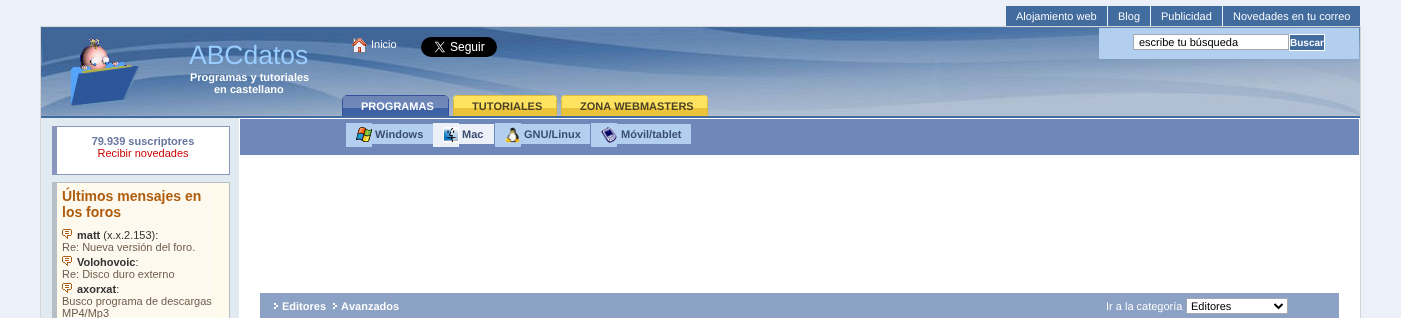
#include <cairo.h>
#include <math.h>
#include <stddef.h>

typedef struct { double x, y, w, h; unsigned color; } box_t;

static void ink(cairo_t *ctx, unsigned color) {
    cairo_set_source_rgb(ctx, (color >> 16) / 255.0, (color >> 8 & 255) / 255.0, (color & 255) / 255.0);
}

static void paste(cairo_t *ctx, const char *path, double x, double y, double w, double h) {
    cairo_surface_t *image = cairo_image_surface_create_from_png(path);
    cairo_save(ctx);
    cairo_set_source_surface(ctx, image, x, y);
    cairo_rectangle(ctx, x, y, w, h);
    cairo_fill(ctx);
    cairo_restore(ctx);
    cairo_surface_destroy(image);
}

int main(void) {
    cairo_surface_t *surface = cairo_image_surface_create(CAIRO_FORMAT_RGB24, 1401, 318);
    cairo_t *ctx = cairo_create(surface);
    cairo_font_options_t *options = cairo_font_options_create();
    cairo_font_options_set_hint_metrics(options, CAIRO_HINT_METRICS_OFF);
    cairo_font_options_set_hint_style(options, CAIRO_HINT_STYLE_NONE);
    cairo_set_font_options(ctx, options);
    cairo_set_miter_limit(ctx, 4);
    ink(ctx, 0xECF0F8);
    cairo_paint(ctx);
    ink(ctx, 0x426C9E);
    cairo_rectangle(ctx, 1006, 6, 101, 20);
    cairo_fill(ctx);
    cairo_select_font_face(ctx, "Liberation Sans", CAIRO_FONT_SLANT_NORMAL, CAIRO_FONT_WEIGHT_NORMAL);
    cairo_set_font_size(ctx, 11);
    ink(ctx, 0xFFFFFF);
    cairo_move_to(ctx, 1016, 20);
    cairo_show_text(ctx, "Alojamiento web");
    ink(ctx, 0x426C9E);
    cairo_rectangle(ctx, 1108, 6, 42, 20);
    cairo_fill(ctx);
    ink(ctx, 0xFFFFFF);
    cairo_move_to(ctx, 1118, 20);
    cairo_show_text(ctx, "Blog");
    ink(ctx, 0x426C9E);
    cairo_rectangle(ctx, 1151, 6, 71, 20);
    cairo_fill(ctx);
    ink(ctx, 0xFFFFFF);
    cairo_move_to(ctx, 1161, 20);
    cairo_show_text(ctx, "Publicidad");
    ink(ctx, 0x426C9E);
    cairo_rectangle(ctx, 1223, 6, 137, 20);
    cairo_fill(ctx);
    ink(ctx, 0xFFFFFF);
    cairo_move_to(ctx, 1233, 20);
    cairo_show_text(ctx, "Novedades en tu correo");
    ink(ctx, 0x426C9E);
    cairo_rectangle(ctx, 41, 116, 1319, 2);
    cairo_fill(ctx);
    paste(ctx, "media/1.png", 41, 27, 1319, 89);
    {
        static const box_t items[] = {
            {40, 26, 1321, 1, 0xD5D5D5},
            {1360, 26, 1, 292, 0xD5D5D5},
            {40, 26, 1, 292, 0xD5D5D5},
        };
        for (size_t i = 0; i < sizeof items / sizeof *items; i++) {
            ink(ctx, items[i].color);
            cairo_rectangle(ctx, items[i].x, items[i].y, items[i].w, items[i].h);
            cairo_fill(ctx);
        }
    }
    paste(ctx, "media/2.png", 71, 38, 70, 68);
    cairo_set_font_size(ctx, 26.5);
    ink(ctx, 0x99CCFF);
    cairo_move_to(ctx, 189, 64);
    cairo_show_text(ctx, "ABCdatos");
    cairo_select_font_face(ctx, "Liberation Sans", CAIRO_FONT_SLANT_NORMAL, CAIRO_FONT_WEIGHT_BOLD);
    cairo_set_font_size(ctx, 11);
    ink(ctx, 0xFFFFFF);
    cairo_move_to(ctx, 190, 81);
    cairo_show_text(ctx, "Programas y tutoriales");
    cairo_move_to(ctx, 214, 93);
    cairo_show_text(ctx, "en castellano");
    paste(ctx, "media/3.png", 352, 38, 15, 15);
    cairo_select_font_face(ctx, "Liberation Sans", CAIRO_FONT_SLANT_NORMAL, CAIRO_FONT_WEIGHT_NORMAL);
    cairo_move_to(ctx, 371, 48);
    cairo_show_text(ctx, "Inicio");
    paste(ctx, "media/4.png", 421, 37, 76, 20);
    ink(ctx, 0xB2CFF0);
    cairo_rectangle(ctx, 1099, 28, 260, 31);
    cairo_fill(ctx);
    ink(ctx, 0xFFFFFF);
    cairo_rectangle(ctx, 1133.5, 34.5, 155, 15);
    cairo_fill_preserve(ctx);
    ink(ctx, 0xA7A7AF);
    cairo_set_line_width(ctx, 1);
    cairo_stroke(ctx);
    ink(ctx, 0x000000);
    cairo_move_to(ctx, 1139, 46);
    cairo_show_text(ctx, "escribe tu búsqueda");
    ink(ctx, 0x426C9E);
    cairo_rectangle(ctx, 1289.5, 34.5, 35, 16);
    cairo_fill_preserve(ctx);
    ink(ctx, 0xFFFFFF);
    cairo_stroke(ctx);
    cairo_select_font_face(ctx, "Liberation Sans", CAIRO_FONT_SLANT_NORMAL, CAIRO_FONT_WEIGHT_BOLD);
    cairo_set_font_size(ctx, 10);
    cairo_move_to(ctx, 1290, 46);
    cairo_show_text(ctx, "Buscar");
    paste(ctx, "media/5.png", 342, 95, 5, 21);
    paste(ctx, "media/6.png", 347, 95, 102, 21);
    cairo_set_font_size(ctx, 11);
    cairo_move_to(ctx, 361, 110);
    cairo_show_text(ctx, "PROGRAMAS");
    paste(ctx, "media/7.png", 453, 95, 4, 21);
    paste(ctx, "media/8.png", 457, 95, 101, 21);
    ink(ctx, 0x4A4224);
    cairo_move_to(ctx, 472, 110);
    cairo_show_text(ctx, "TUTORIALES");
    paste(ctx, "media/9.png", 561, 95, 4, 21);
    paste(ctx, "media/10.png", 565, 95, 144, 21);
    cairo_move_to(ctx, 580, 110);
    cairo_show_text(ctx, "ZONA WEBMASTERS");
    {
        static const box_t items[] = {
            {41, 118, 198, 200, 0xE1E9F1},
            {57, 127, 172, 47, 0xFFFFFF},
            {52, 126, 178, 1, 0x8997BF},
            {229, 126, 1, 49, 0x8997BF},
            {52, 174, 178, 1, 0x8997BF},
            {52, 126, 5, 49, 0x8997BF},
        };
        for (size_t i = 0; i < sizeof items / sizeof *items; i++) {
            ink(ctx, items[i].color);
            cairo_rectangle(ctx, items[i].x, items[i].y, items[i].w, items[i].h);
            cairo_fill(ctx);
        }
    }
    paste(ctx, "media/11.png", 92, 137, 102, 20);
    {
        static const box_t items[] = {
            {57, 183, 172, 135, 0xFEFAEC},
            {52, 182, 178, 1, 0xB6BEC6},
            {229, 182, 1, 136, 0xB6BEC6},
            {52, 182, 5, 136, 0xB6BEC6},
        };
        for (size_t i = 0; i < sizeof items / sizeof *items; i++) {
            ink(ctx, items[i].color);
            cairo_rectangle(ctx, items[i].x, items[i].y, items[i].w, items[i].h);
            cairo_fill(ctx);
        }
    }
    paste(ctx, "media/12.png", 62, 187, 150, 131);
    {
        static const box_t items[] = {
            {239, 118, 1121, 200, 0xFFFFFF},
            {240, 119, 1119, 36, 0x6E88B9},
            {346, 123, 26, 24, 0xB2CFF0},
        };
        for (size_t i = 0; i < sizeof items / sizeof *items; i++) {
            ink(ctx, items[i].color);
            cairo_rectangle(ctx, items[i].x, items[i].y, items[i].w, items[i].h);
            cairo_fill(ctx);
        }
    }
    paste(ctx, "media/13.png", 356, 127, 16, 15);
    cairo_rectangle(ctx, 372, 124, 61, 20);
    cairo_fill(ctx);
    ink(ctx, 0x394D6F);
    cairo_move_to(ctx, 375, 138);
    cairo_show_text(ctx, "Windows");
    ink(ctx, 0xECF0F8);
    cairo_rectangle(ctx, 433, 123, 26, 24);
    cairo_fill(ctx);
    paste(ctx, "media/14.png", 443, 127, 16, 16);
    cairo_rectangle(ctx, 459, 124, 35, 20);
    cairo_fill(ctx);
    ink(ctx, 0x394D6F);
    cairo_move_to(ctx, 462, 138);
    cairo_show_text(ctx, "Mac");
    ink(ctx, 0xB2CFF0);
    cairo_rectangle(ctx, 495, 123, 26, 24);
    cairo_fill(ctx);
    paste(ctx, "media/15.png", 505, 127, 15, 16);
    cairo_rectangle(ctx, 521, 124, 69, 20);
    cairo_fill(ctx);
    ink(ctx, 0x394D6F);
    cairo_move_to(ctx, 524, 138);
    cairo_show_text(ctx, "GNU/Linux");
    ink(ctx, 0xB2CFF0);
    cairo_rectangle(ctx, 591, 123, 26, 24);
    cairo_fill(ctx);
    paste(ctx, "media/16.png", 601, 127, 16, 16);
    cairo_rectangle(ctx, 617, 124, 74, 20);
    cairo_fill(ctx);
    ink(ctx, 0x394D6F);
    cairo_move_to(ctx, 621, 138);
    cairo_show_text(ctx, "Móvil/tablet");
    ink(ctx, 0x8CA2C4);
    cairo_rectangle(ctx, 260, 293, 1079, 25);
    cairo_fill(ctx);
    paste(ctx, "media/17.png", 274, 303, 4, 6);
    ink(ctx, 0xFFFFFF);
    cairo_move_to(ctx, 282, 310);
    cairo_show_text(ctx, "Editores");
    paste(ctx, "media/17.png", 333, 303, 4, 6);
    cairo_move_to(ctx, 341, 310);
    cairo_show_text(ctx, "Avanzados");
    cairo_select_font_face(ctx, "Liberation Sans", CAIRO_FONT_SLANT_NORMAL, CAIRO_FONT_WEIGHT_NORMAL);
    cairo_move_to(ctx, 1106, 310);
    cairo_show_text(ctx, "Ir a la categoría");
    cairo_rectangle(ctx, 1186.5, 298.5, 101, 15);
    cairo_fill_preserve(ctx);
    ink(ctx, 0xA7A7AF);
    cairo_stroke(ctx);
    cairo_new_path(ctx);
    cairo_move_to(ctx, 1274.5, 304);
    cairo_line_to(ctx, 1278.5, 308);
    cairo_line_to(ctx, 1282.5, 304);
    ink(ctx, 0x000000);
    cairo_set_line_width(ctx, 2);
    cairo_stroke(ctx);
    cairo_move_to(ctx, 1191, 310);
    cairo_show_text(ctx, "Editores");
    cairo_surface_write_to_png(surface, "image.png");
    cairo_font_options_destroy(options);
    cairo_destroy(ctx);
    cairo_surface_destroy(surface);
    return 0;
}
